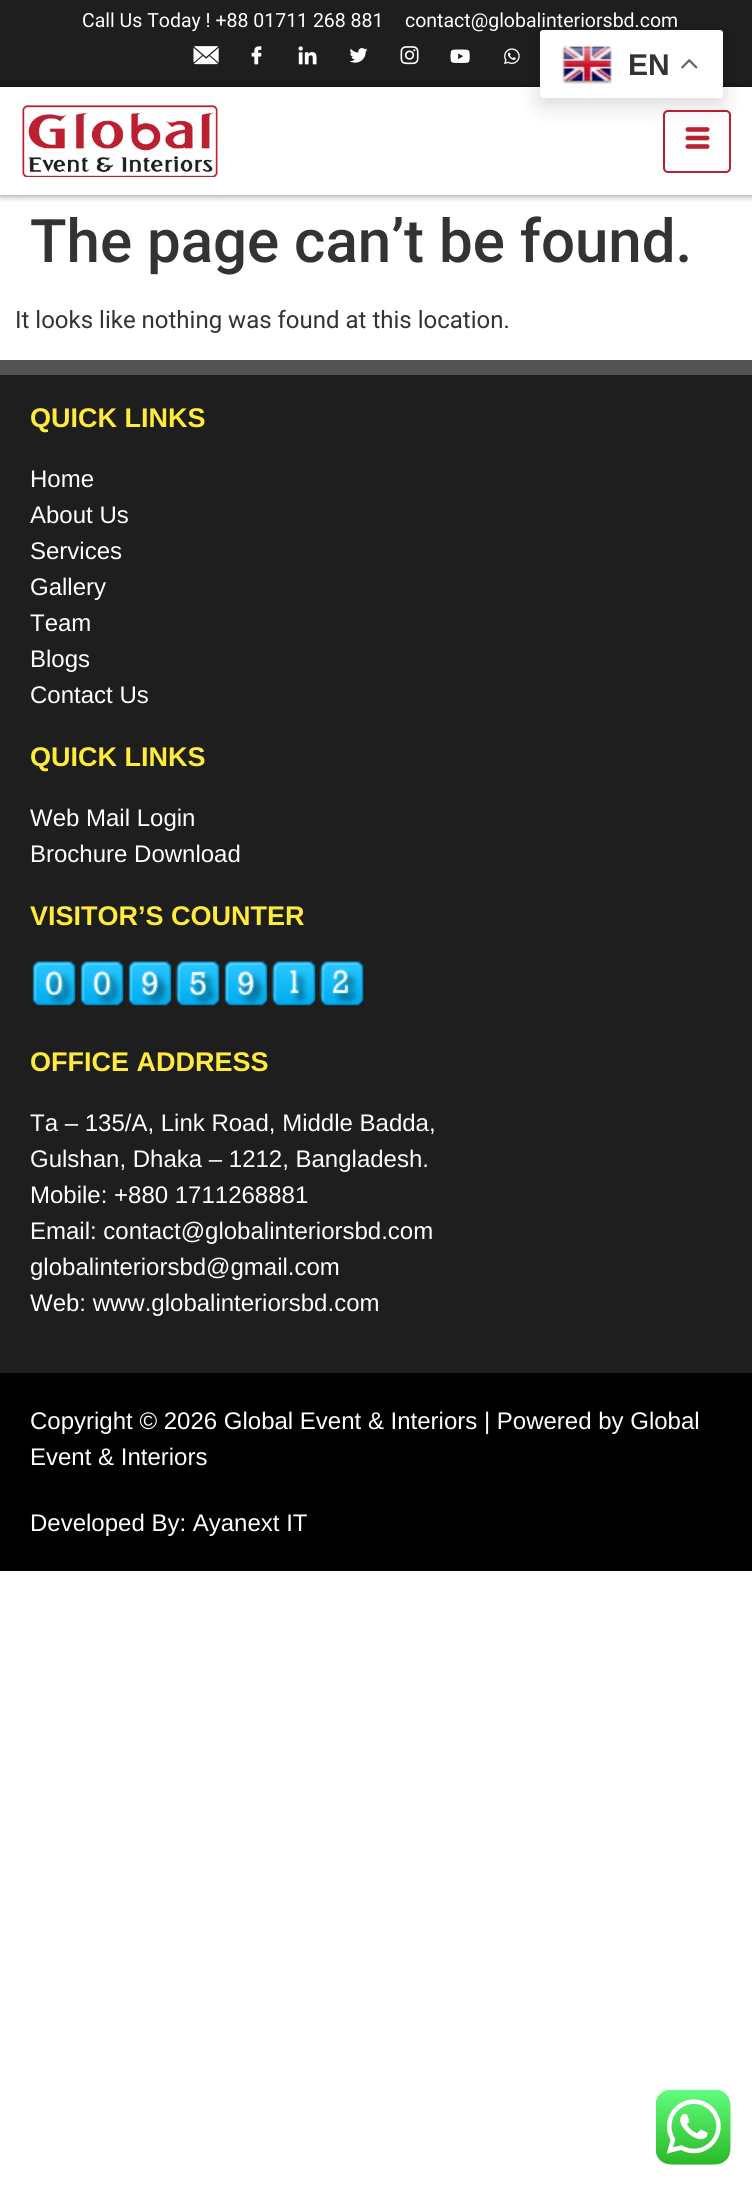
#include <cairo.h>
#include <math.h>
#include <stddef.h>

typedef struct { double x, y; const char *s; } line_t;

static void ink(cairo_t *ctx, unsigned color) {
    cairo_set_source_rgb(ctx, (color >> 16) / 255.0, (color >> 8 & 255) / 255.0, (color & 255) / 255.0);
}

static void round_path(cairo_t *ctx, double x, double y, double w, double h, double r) {
    cairo_new_sub_path(ctx);
    cairo_arc(ctx, x + w - r, y + h - r, r, 0, M_PI / 2);
    cairo_arc(ctx, x + r, y + h - r, r, M_PI / 2, M_PI);
    cairo_arc(ctx, x + r, y + r, r, M_PI, 1.5 * M_PI);
    cairo_arc(ctx, x + w - r, y + r, r, 1.5 * M_PI, 2 * M_PI);
    cairo_close_path(ctx);
}

static void blur_box(cairo_t *ctx, double x, double y, double w, double h, double r, double blur, double alpha) {
    cairo_push_group_with_content(ctx, CAIRO_CONTENT_ALPHA);
    cairo_set_operator(ctx, CAIRO_OPERATOR_SOURCE);
    for (int i = 15; i >= -15 && fmin(w, h) + blur * i / 3 > 0; i -= 2) {
        double e = blur * i / 6;
        cairo_set_source_rgba(ctx, 0, 0, 0, alpha * erfc((i - 1) / 8.5) / 2);
        round_path(ctx, x - e, y - e, w + 2 * e, h + 2 * e, fmax(0, fmin(r + e + blur * .6, fmin(w, h) / 2 + e)));
        cairo_fill(ctx);
    }
    cairo_pattern_t *soft = cairo_pop_group(ctx);
    cairo_mask(ctx, soft);
    cairo_pattern_destroy(soft);
}

static void paste(cairo_t *ctx, const char *path, double x, double y, double w, double h) {
    cairo_surface_t *image = cairo_image_surface_create_from_png(path);
    cairo_save(ctx);
    cairo_set_source_surface(ctx, image, x, y);
    cairo_rectangle(ctx, x, y, w, h);
    cairo_fill(ctx);
    cairo_restore(ctx);
    cairo_surface_destroy(image);
}

int main(void) {
    cairo_surface_t *surface = cairo_image_surface_create(CAIRO_FORMAT_RGB24, 752, 2187);
    cairo_t *ctx = cairo_create(surface);
    cairo_font_options_t *options = cairo_font_options_create();
    cairo_font_options_set_hint_metrics(options, CAIRO_HINT_METRICS_OFF);
    cairo_font_options_set_hint_style(options, CAIRO_HINT_STYLE_NONE);
    cairo_set_font_options(ctx, options);
    cairo_set_miter_limit(ctx, 4);
    ink(ctx, 0xFFFFFF);
    cairo_paint(ctx);
    ink(ctx, 0x1E1E1E);
    cairo_rectangle(ctx, 0, 0, 752, 87);
    cairo_fill(ctx);
    cairo_select_font_face(ctx, "Roboto", CAIRO_FONT_SLANT_NORMAL, CAIRO_FONT_WEIGHT_NORMAL);
    cairo_set_font_size(ctx, 19.5);
    ink(ctx, 0xFFFFFF);
    cairo_move_to(ctx, 82, 27);
    cairo_show_text(ctx, "Call Us Today ! +88 01711 268 881");
    cairo_move_to(ctx, 405, 27);
    cairo_show_text(ctx, "contact@globalinteriorsbd.com");
    paste(ctx, "media/1.png", 193, 46, 26, 19);
    paste(ctx, "media/2.png", 251, 46, 11, 19);
    paste(ctx, "media/3.png", 298, 46, 19, 19);
    paste(ctx, "media/4.png", 349, 48, 19, 15);
    paste(ctx, "media/5.png", 400, 46, 19, 19);
    paste(ctx, "media/6.png", 450, 49, 20, 14);
    paste(ctx, "media/7.png", 504, 48, 16, 17);
    cairo_save(ctx);
    cairo_set_fill_rule(ctx, CAIRO_FILL_RULE_EVEN_ODD);
    cairo_new_path(ctx);
    cairo_move_to(ctx, 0, 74);
    cairo_line_to(ctx, 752, 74);
    cairo_line_to(ctx, 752, 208);
    cairo_line_to(ctx, 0, 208);
    cairo_close_path(ctx);
    cairo_move_to(ctx, 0, 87);
    cairo_line_to(ctx, 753, 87);
    cairo_line_to(ctx, 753, 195);
    cairo_line_to(ctx, 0, 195);
    cairo_close_path(ctx);
    cairo_clip(ctx);
    ink(ctx, 0x000000);
    blur_box(ctx, 0, 87, 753, 108, 0, 4, 0.5);
    cairo_restore(ctx);
    paste(ctx, "media/8.png", 22, 105, 196, 72);
    round_path(ctx, 664, 111, 66, 61, 4);
    ink(ctx, 0xBD2030);
    cairo_stroke(ctx);
    paste(ctx, "media/9.png", 685, 127, 25, 22);
    cairo_select_font_face(ctx, "Roboto Medium", CAIRO_FONT_SLANT_NORMAL, CAIRO_FONT_WEIGHT_NORMAL);
    cairo_set_font_size(ctx, 60);
    ink(ctx, 0x333333);
    cairo_move_to(ctx, 30, 262);
    cairo_show_text(ctx, "The page can’t be found.");
    cairo_select_font_face(ctx, "Roboto", CAIRO_FONT_SLANT_NORMAL, CAIRO_FONT_WEIGHT_NORMAL);
    cairo_set_font_size(ctx, 24);
    cairo_move_to(ctx, 15, 328);
    cairo_show_text(ctx, "It looks like nothing was found at this location.");
    ink(ctx, 0x1E1E1E);
    cairo_rectangle(ctx, 0, 375, 752, 998);
    cairo_fill(ctx);
    ink(ctx, 0x535353);
    cairo_rectangle(ctx, 0, 360, 752, 15);
    cairo_fill(ctx);
    cairo_select_font_face(ctx, "Liberation Sans", CAIRO_FONT_SLANT_NORMAL, CAIRO_FONT_WEIGHT_BOLD);
    cairo_set_font_size(ctx, 27);
    ink(ctx, 0xFFEB3B);
    cairo_move_to(ctx, 30, 427);
    cairo_show_text(ctx, "QUICK LINKS");
    cairo_select_font_face(ctx, "Liberation Sans", CAIRO_FONT_SLANT_NORMAL, CAIRO_FONT_WEIGHT_NORMAL);
    cairo_set_font_size(ctx, 24);
    ink(ctx, 0xFFFFFF);
    {
        static const line_t items[] = {
            {30, 487, "Home"},
            {30, 523, "About Us"},
            {30, 559, "Services"},
            {30, 595, "Gallery"},
            {30, 631, "Team"},
            {30, 667, "Blogs"},
            {30, 703, "Contact Us"},
        };
        for (size_t i = 0; i < sizeof items / sizeof *items; i++) {
            cairo_move_to(ctx, items[i].x, items[i].y);
            cairo_show_text(ctx, items[i].s);
        }
    }
    cairo_select_font_face(ctx, "Liberation Sans", CAIRO_FONT_SLANT_NORMAL, CAIRO_FONT_WEIGHT_BOLD);
    cairo_set_font_size(ctx, 27);
    ink(ctx, 0xFFEB3B);
    cairo_move_to(ctx, 30, 766);
    cairo_show_text(ctx, "QUICK LINKS");
    cairo_select_font_face(ctx, "Liberation Sans", CAIRO_FONT_SLANT_NORMAL, CAIRO_FONT_WEIGHT_NORMAL);
    cairo_set_font_size(ctx, 24);
    ink(ctx, 0xFFFFFF);
    cairo_move_to(ctx, 30, 826);
    cairo_show_text(ctx, "Web Mail Login");
    cairo_move_to(ctx, 30, 862);
    cairo_show_text(ctx, "Brochure Download");
    cairo_select_font_face(ctx, "Liberation Sans", CAIRO_FONT_SLANT_NORMAL, CAIRO_FONT_WEIGHT_BOLD);
    cairo_set_font_size(ctx, 27);
    ink(ctx, 0xFFEB3B);
    cairo_move_to(ctx, 30, 925);
    cairo_show_text(ctx, "VISITOR’S COUNTER");
    paste(ctx, "media/10.png", 32, 961, 332, 45);
    cairo_move_to(ctx, 30, 1071);
    cairo_show_text(ctx, "OFFICE ADDRESS");
    cairo_select_font_face(ctx, "Liberation Sans", CAIRO_FONT_SLANT_NORMAL, CAIRO_FONT_WEIGHT_NORMAL);
    cairo_set_font_size(ctx, 24);
    ink(ctx, 0xFFFFFF);
    {
        static const line_t items[] = {
            {30, 1131, "Ta – 135/A, Link Road, Middle Badda,"},
            {30, 1167, "Gulshan, Dhaka – 1212, Bangladesh."},
            {30, 1203, "Mobile: +880 1711268881"},
            {30, 1239, "Email: contact@globalinteriorsbd.com"},
            {30, 1275, "globalinteriorsbd@gmail.com"},
            {30, 1311, "Web: www.globalinteriorsbd.com"},
        };
        for (size_t i = 0; i < sizeof items / sizeof *items; i++) {
            cairo_move_to(ctx, items[i].x, items[i].y);
            cairo_show_text(ctx, items[i].s);
        }
    }
    ink(ctx, 0x000000);
    cairo_rectangle(ctx, 0, 1373, 752, 198);
    cairo_fill(ctx);
    ink(ctx, 0xFFFFFF);
    {
        static const line_t items[] = {
            {30, 1429, "Copyright © 2026 Global Event & Interiors | Powered by Global"},
            {30, 1465, "Event & Interiors"},
            {30, 1531, "Developed By: Ayanext IT"},
        };
        for (size_t i = 0; i < sizeof items / sizeof *items; i++) {
            cairo_move_to(ctx, items[i].x, items[i].y);
            cairo_show_text(ctx, items[i].s);
        }
    }
    ink(ctx, 0x000000);
    blur_box(ctx, 540, 38, 183, 67, 3, 11, 0.15);
    ink(ctx, 0xFFFFFF);
    round_path(ctx, 540, 30, 183, 68, 3);
    cairo_fill(ctx);
    paste(ctx, "media/11.png", 562, 45, 50, 39);
    cairo_select_font_face(ctx, "Liberation Sans", CAIRO_FONT_SLANT_NORMAL, CAIRO_FONT_WEIGHT_BOLD);
    cairo_set_font_size(ctx, 30);
    ink(ctx, 0x333333);
    cairo_move_to(ctx, 628, 75);
    cairo_show_text(ctx, "EN");
    paste(ctx, "media/12.png", 681, 59, 17, 10);
    paste(ctx, "media/13.png", 656, 2090, 75, 75);
    cairo_surface_write_to_png(surface, "image.png");
    cairo_font_options_destroy(options);
    cairo_destroy(ctx);
    cairo_surface_destroy(surface);
    return 0;
}
